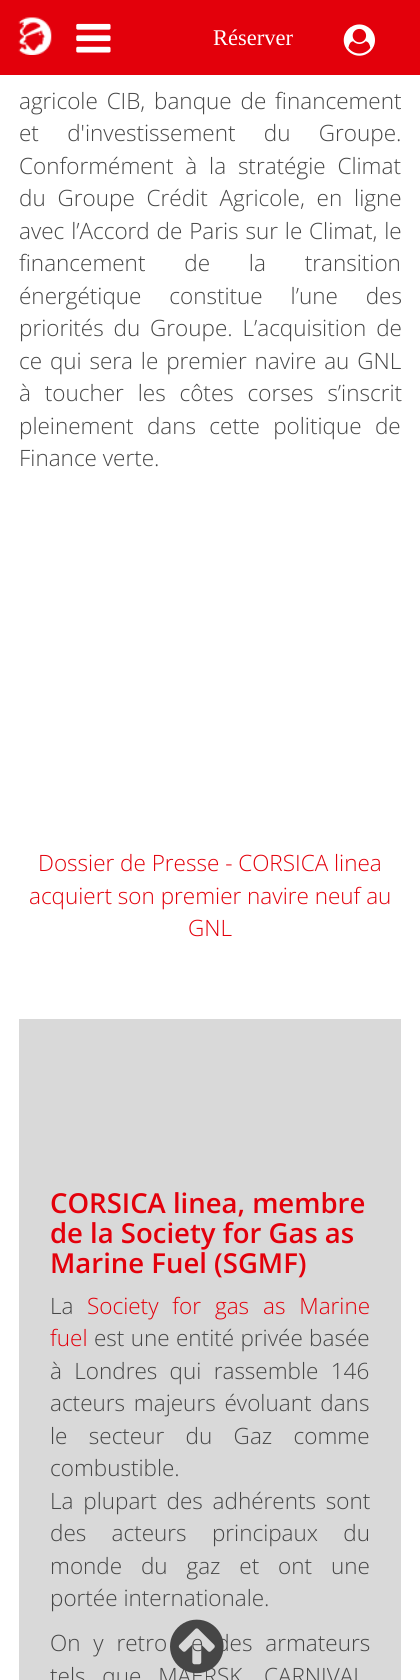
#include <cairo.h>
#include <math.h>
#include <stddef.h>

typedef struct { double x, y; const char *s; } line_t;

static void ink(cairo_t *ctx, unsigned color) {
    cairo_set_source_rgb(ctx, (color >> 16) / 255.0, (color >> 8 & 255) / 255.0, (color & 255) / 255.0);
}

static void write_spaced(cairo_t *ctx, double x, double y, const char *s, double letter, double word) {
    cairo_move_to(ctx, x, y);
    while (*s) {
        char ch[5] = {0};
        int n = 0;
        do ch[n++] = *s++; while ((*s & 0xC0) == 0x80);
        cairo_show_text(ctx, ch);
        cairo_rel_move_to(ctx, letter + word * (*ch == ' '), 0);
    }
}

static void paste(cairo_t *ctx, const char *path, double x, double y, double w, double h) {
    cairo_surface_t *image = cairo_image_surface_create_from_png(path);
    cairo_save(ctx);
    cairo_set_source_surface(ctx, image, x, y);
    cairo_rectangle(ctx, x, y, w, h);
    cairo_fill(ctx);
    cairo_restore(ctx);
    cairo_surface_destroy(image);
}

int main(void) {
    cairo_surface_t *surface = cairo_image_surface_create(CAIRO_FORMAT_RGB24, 420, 1680);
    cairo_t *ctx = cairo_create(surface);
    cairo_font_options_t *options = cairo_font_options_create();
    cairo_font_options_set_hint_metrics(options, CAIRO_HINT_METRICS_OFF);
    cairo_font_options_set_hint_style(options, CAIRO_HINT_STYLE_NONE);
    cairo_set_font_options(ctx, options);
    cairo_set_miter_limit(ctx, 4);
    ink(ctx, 0xFFFFFF);
    cairo_paint(ctx);
    ink(ctx, 0xE3000B);
    cairo_rectangle(ctx, 0, 0, 420, 75);
    cairo_fill(ctx);
    paste(ctx, "media/1.png", 18, 17, 34, 38);
    paste(ctx, "media/2.png", 76, 23, 35, 30);
    cairo_select_font_face(ctx, "Liberation Serif", CAIRO_FONT_SLANT_NORMAL, CAIRO_FONT_WEIGHT_NORMAL);
    cairo_set_font_size(ctx, 22.5);
    ink(ctx, 0xFFFFFF);
    cairo_move_to(ctx, 213, 45);
    cairo_show_text(ctx, "Réserver");
    paste(ctx, "media/3.png", 343, 24, 32, 32);
    cairo_select_font_face(ctx, "Open Sans Light", CAIRO_FONT_SLANT_NORMAL, CAIRO_FONT_WEIGHT_NORMAL);
    ink(ctx, 0x464646);
    write_spaced(ctx, 19, 109, "agricole CIB, banque de financement", 0, 3);
    write_spaced(ctx, 19, 141, "et d'investissement du Groupe.", 0, 22.5);
    write_spaced(ctx, 19, 174, "Conformément à la stratégie Climat", 0, 6);
    write_spaced(ctx, 19, 206, "du Groupe Crédit Agricole, en ligne", 0, 6);
    write_spaced(ctx, 19, 239, "avec l’Accord de Paris sur le Climat, le", 0, 1);
    write_spaced(ctx, 19, 271, "financement de la transition", 0, 33);
    write_spaced(ctx, 19, 304, "énergétique constitue l’une des", 0, 22);
    write_spaced(ctx, 19, 336, "priorités du Groupe. L’acquisition de", 0, 4);
    write_spaced(ctx, 19, 369, "ce qui sera le premier navire au GNL", 0, 2);
    write_spaced(ctx, 19, 401, "à toucher les côtes corses s’inscrit", 0, 8);
    write_spaced(ctx, 19, 434, "pleinement dans cette politique de", 0, 7.5);
    cairo_move_to(ctx, 19, 466);
    cairo_show_text(ctx, "Finance verte.");
    ink(ctx, 0xE3000B);
    {
        static const line_t items[] = {
            {38, 871, "Dossier de Presse - CORSICA linea"},
            {29, 904, "acquiert son premier navire neuf au"},
            {188, 936, "GNL"},
        };
        for (size_t i = 0; i < sizeof items / sizeof *items; i++) {
            cairo_move_to(ctx, items[i].x, items[i].y);
            cairo_show_text(ctx, items[i].s);
        }
    }
    ink(ctx, 0xD9D9D9);
    cairo_rectangle(ctx, 19, 1019, 382, 661);
    cairo_fill(ctx);
    cairo_select_font_face(ctx, "Open Sans SemiBold", CAIRO_FONT_SLANT_NORMAL, CAIRO_FONT_WEIGHT_NORMAL);
    cairo_set_font_size(ctx, 27.5);
    ink(ctx, 0xE3000B);
    {
        static const line_t items[] = {
            {50, 1213, "CORSICA linea, membre"},
            {50, 1243, "de la Society for Gas as"},
            {50, 1273, "Marine Fuel (SGMF)"},
        };
        for (size_t i = 0; i < sizeof items / sizeof *items; i++) {
            cairo_move_to(ctx, items[i].x, items[i].y);
            cairo_show_text(ctx, items[i].s);
        }
    }
    cairo_select_font_face(ctx, "Open Sans Light", CAIRO_FONT_SLANT_NORMAL, CAIRO_FONT_WEIGHT_NORMAL);
    cairo_set_font_size(ctx, 22.5);
    ink(ctx, 0x464646);
    cairo_move_to(ctx, 50, 1314);
    cairo_show_text(ctx, "La");
    ink(ctx, 0xE3000B);
    write_spaced(ctx, 87, 1314, "Society for", 0, 8);
    cairo_move_to(ctx, 215, 1314);
    cairo_show_text(ctx, "gas");
    write_spaced(ctx, 263, 1314, "as Marine", 0, 8);
    cairo_move_to(ctx, 50, 1346);
    cairo_show_text(ctx, "fuel");
    ink(ctx, 0x464646);
    write_spaced(ctx, 94, 1346, "est une entité privée basée", 0, 0.5);
    write_spaced(ctx, 50, 1379, "à Londres qui rassemble 146", 0, 6.5);
    write_spaced(ctx, 50, 1411, "acteurs majeurs évoluant dans", 0, 3);
    write_spaced(ctx, 50, 1444, "le secteur du Gaz comme", 0, 15.5);
    cairo_move_to(ctx, 50, 1476);
    cairo_show_text(ctx, "combustible.");
    write_spaced(ctx, 50, 1509, "La plupart des adhérents sont", 0, 4);
    write_spaced(ctx, 50, 1541, "des acteurs principaux du", 0, 19.5);
    write_spaced(ctx, 50, 1574, "monde du gaz et ont une", 0, 13);
    cairo_move_to(ctx, 50, 1606);
    cairo_show_text(ctx, "portée internationale.");
    write_spaced(ctx, 50, 1651, "On y retro", 0, 7);
    write_spaced(ctx, 191, 1651, "e des armateurs", 0, 7);
    write_spaced(ctx, 50, 1684, "tels que MAERSK, CARNIVAL", 0, 11);
    paste(ctx, "media/4.png", 170, 1619, 54, 55);
    cairo_surface_write_to_png(surface, "image.png");
    cairo_font_options_destroy(options);
    cairo_destroy(ctx);
    cairo_surface_destroy(surface);
    return 0;
}
